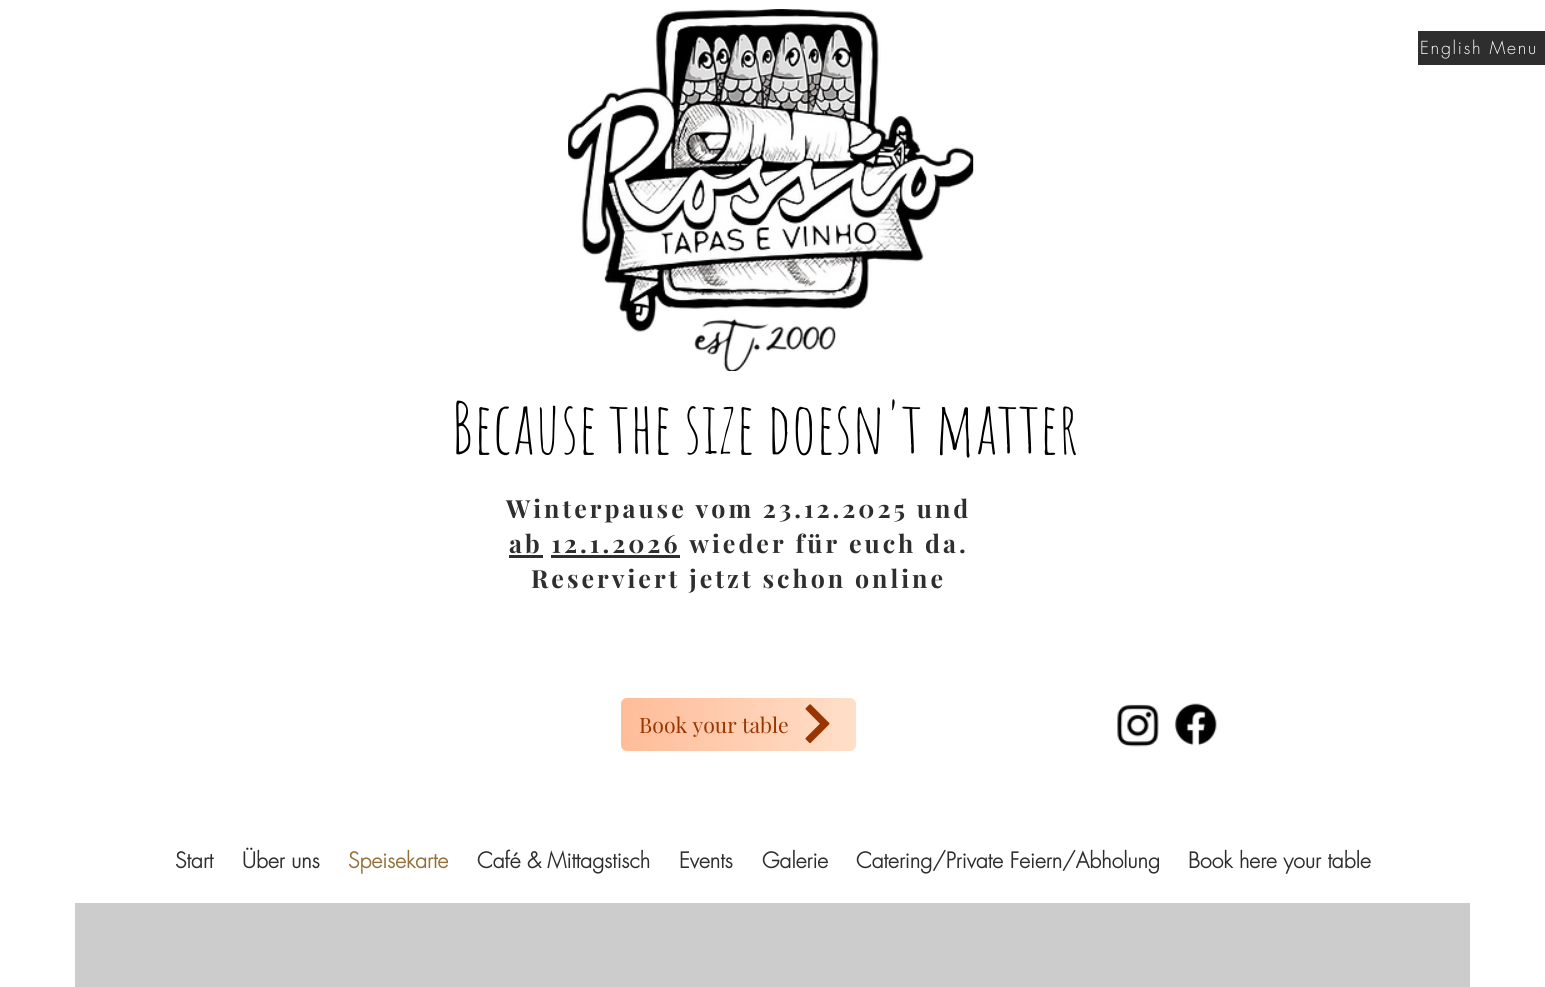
#include <cairo.h>
#include <math.h>
#include <stddef.h>

typedef struct { double x, y; const char *s; } line_t;

static void ink(cairo_t *ctx, unsigned color) {
    cairo_set_source_rgb(ctx, (color >> 16) / 255.0, (color >> 8 & 255) / 255.0, (color & 255) / 255.0);
}

static void write_spaced(cairo_t *ctx, double x, double y, const char *s, double letter, double word) {
    cairo_move_to(ctx, x, y);
    while (*s) {
        char ch[5] = {0};
        int n = 0;
        do ch[n++] = *s++; while ((*s & 0xC0) == 0x80);
        cairo_show_text(ctx, ch);
        cairo_rel_move_to(ctx, letter + word * (*ch == ' '), 0);
    }
}

static void round_path(cairo_t *ctx, double x, double y, double w, double h, double r) {
    cairo_new_sub_path(ctx);
    cairo_arc(ctx, x + w - r, y + h - r, r, 0, M_PI / 2);
    cairo_arc(ctx, x + r, y + h - r, r, M_PI / 2, M_PI);
    cairo_arc(ctx, x + r, y + r, r, M_PI, 1.5 * M_PI);
    cairo_arc(ctx, x + w - r, y + r, r, 1.5 * M_PI, 2 * M_PI);
    cairo_close_path(ctx);
}

static void paste(cairo_t *ctx, const char *path, double x, double y, double w, double h) {
    cairo_surface_t *image = cairo_image_surface_create_from_png(path);
    cairo_save(ctx);
    cairo_set_source_surface(ctx, image, x, y);
    cairo_rectangle(ctx, x, y, w, h);
    cairo_fill(ctx);
    cairo_restore(ctx);
    cairo_surface_destroy(image);
}

int main(void) {
    cairo_surface_t *surface = cairo_image_surface_create(CAIRO_FORMAT_RGB24, 1545, 987);
    cairo_t *ctx = cairo_create(surface);
    cairo_font_options_t *options = cairo_font_options_create();
    cairo_font_options_set_hint_metrics(options, CAIRO_HINT_METRICS_OFF);
    cairo_font_options_set_hint_style(options, CAIRO_HINT_STYLE_NONE);
    cairo_set_font_options(ctx, options);
    cairo_set_miter_limit(ctx, 4);
    cairo_pattern_t *gradient;
    ink(ctx, 0xFFFFFF);
    cairo_paint(ctx);
    paste(ctx, "media/1.png", 568, 9, 406, 362);
    ink(ctx, 0x2F2E2E);
    cairo_rectangle(ctx, 1418, 31, 127, 34);
    cairo_fill(ctx);
    cairo_select_font_face(ctx, "futura Light", CAIRO_FONT_SLANT_NORMAL, CAIRO_FONT_WEIGHT_NORMAL);
    cairo_set_font_size(ctx, 17.5);
    ink(ctx, 0xFFFFFF);
    write_spaced(ctx, 1420, 54, "English Menu", 1.75, 0);
    cairo_select_font_face(ctx, "Amatic SC", CAIRO_FONT_SLANT_NORMAL, CAIRO_FONT_WEIGHT_NORMAL);
    cairo_set_font_size(ctx, 71.25);
    ink(ctx, 0x000000);
    cairo_move_to(ctx, 451, 454);
    cairo_show_text(ctx, "Because the size doesn't matter");
    cairo_select_font_face(ctx, "Playfair Display", CAIRO_FONT_SLANT_NORMAL, CAIRO_FONT_WEIGHT_BOLD);
    cairo_set_font_size(ctx, 25);
    ink(ctx, 0x2F2E2E);
    write_spaced(ctx, 506, 518, "Winterpause vom 23.12.2025 und", 3, 0);
    write_spaced(ctx, 509, 553, "ab 12.1.2026 wieder für euch da.", 3, 0);
    cairo_rectangle(ctx, 509, 555, 34, 3);
    cairo_fill(ctx);
    cairo_rectangle(ctx, 551, 555, 129, 3);
    cairo_fill(ctx);
    write_spaced(ctx, 531, 588, "Reserviert jetzt schon online", 3, 0);
    gradient = cairo_pattern_create_linear(621, 724, 856, 724);
    cairo_pattern_add_color_stop_rgba(gradient, 0, 1, 0.737, 0.6, 1);
    cairo_pattern_add_color_stop_rgba(gradient, 1, 1, 0.875, 0.788, 1);
    cairo_set_source(ctx, gradient);
    cairo_pattern_destroy(gradient);
    round_path(ctx, 621, 698, 235, 53, 6);
    cairo_fill(ctx);
    cairo_select_font_face(ctx, "Playfair Display", CAIRO_FONT_SLANT_NORMAL, CAIRO_FONT_WEIGHT_NORMAL);
    cairo_set_font_size(ctx, 21.25);
    ink(ctx, 0x993500);
    cairo_move_to(ctx, 639, 733);
    cairo_show_text(ctx, "Book your table");
    paste(ctx, "media/2.png", 805, 704, 25, 40);
    paste(ctx, "media/3.png", 1117, 704, 42, 43);
    paste(ctx, "media/4.png", 1174, 703, 43, 43);
    cairo_select_font_face(ctx, "futura", CAIRO_FONT_SLANT_NORMAL, CAIRO_FONT_WEIGHT_BOLD);
    ink(ctx, 0x2F2E2E);
    cairo_move_to(ctx, 175, 868);
    cairo_show_text(ctx, "Start");
    cairo_move_to(ctx, 242, 868);
    cairo_show_text(ctx, "Über uns");
    ink(ctx, 0x94703A);
    cairo_move_to(ctx, 348, 868);
    cairo_show_text(ctx, "Speisekarte");
    ink(ctx, 0x2F2E2E);
    {
        static const line_t items[] = {
            {477, 868, "Café & Mittagstisch"},
            {679, 868, "Events"},
            {762, 868, "Galerie"},
            {856, 868, "Catering/Private Feiern/Abholung"},
            {1188, 868, "Book here your table"},
        };
        for (size_t i = 0; i < sizeof items / sizeof *items; i++) {
            cairo_move_to(ctx, items[i].x, items[i].y);
            cairo_show_text(ctx, items[i].s);
        }
    }
    ink(ctx, 0xCCCCCC);
    cairo_rectangle(ctx, 75, 903, 1395, 84);
    cairo_fill(ctx);
    cairo_surface_write_to_png(surface, "image.png");
    cairo_font_options_destroy(options);
    cairo_destroy(ctx);
    cairo_surface_destroy(surface);
    return 0;
}
